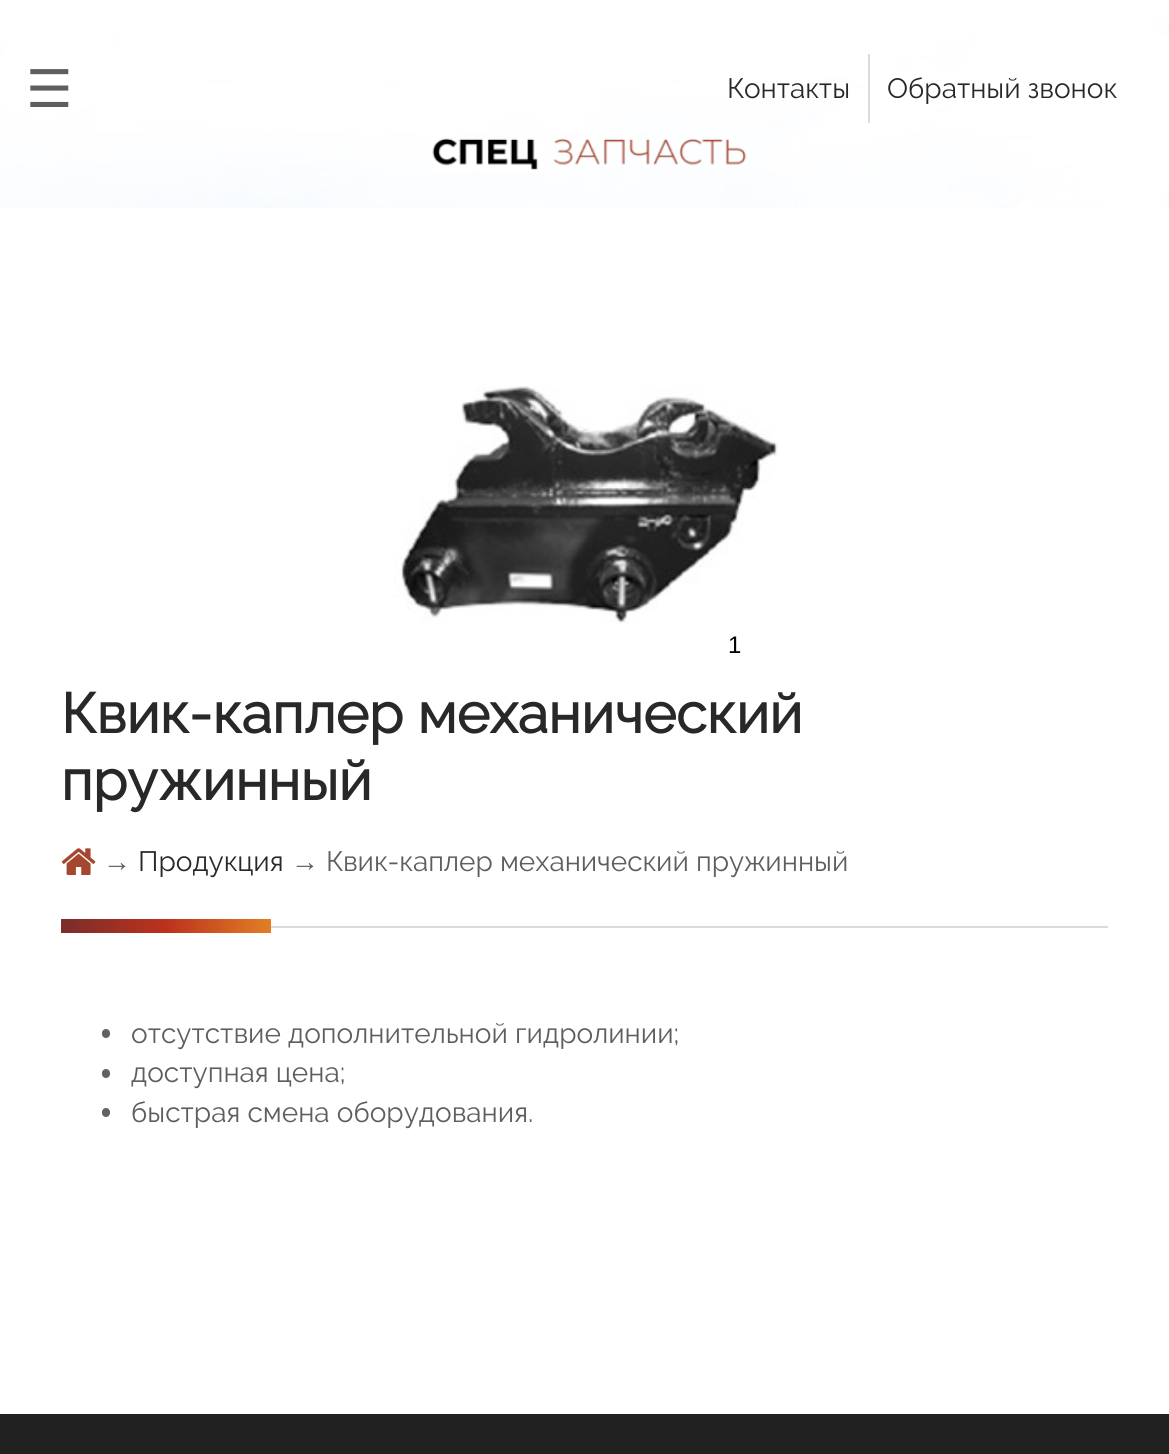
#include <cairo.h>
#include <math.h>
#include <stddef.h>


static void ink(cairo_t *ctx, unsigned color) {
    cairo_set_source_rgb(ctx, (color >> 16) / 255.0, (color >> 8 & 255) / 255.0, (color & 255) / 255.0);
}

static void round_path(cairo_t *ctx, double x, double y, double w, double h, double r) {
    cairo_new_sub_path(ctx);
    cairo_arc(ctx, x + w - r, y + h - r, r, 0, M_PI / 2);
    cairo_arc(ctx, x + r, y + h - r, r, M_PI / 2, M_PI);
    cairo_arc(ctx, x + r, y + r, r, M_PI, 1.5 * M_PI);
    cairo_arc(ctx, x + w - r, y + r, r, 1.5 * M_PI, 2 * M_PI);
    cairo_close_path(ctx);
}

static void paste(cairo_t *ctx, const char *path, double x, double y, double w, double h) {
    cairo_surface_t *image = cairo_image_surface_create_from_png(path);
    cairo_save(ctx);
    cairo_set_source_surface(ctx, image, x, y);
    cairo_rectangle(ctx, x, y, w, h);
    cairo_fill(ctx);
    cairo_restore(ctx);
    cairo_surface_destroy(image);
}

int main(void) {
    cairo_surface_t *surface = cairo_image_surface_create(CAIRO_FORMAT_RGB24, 1169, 1454);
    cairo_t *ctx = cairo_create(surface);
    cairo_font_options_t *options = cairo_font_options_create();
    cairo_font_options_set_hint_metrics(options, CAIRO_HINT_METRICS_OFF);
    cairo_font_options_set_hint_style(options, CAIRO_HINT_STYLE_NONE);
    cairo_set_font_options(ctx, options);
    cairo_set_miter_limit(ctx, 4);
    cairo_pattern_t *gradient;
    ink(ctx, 0x212121);
    cairo_paint(ctx);
    paste(ctx, "media/1.png", 0, 0, 1169, 208);
    cairo_select_font_face(ctx, "DejaVu Sans", CAIRO_FONT_SLANT_NORMAL, CAIRO_FONT_WEIGHT_NORMAL);
    cairo_set_font_size(ctx, 52);
    ink(ctx, 0x5F5D5D);
    cairo_move_to(ctx, 26, 107);
    cairo_show_text(ctx, "☰");
    cairo_select_font_face(ctx, "Raleway", CAIRO_FONT_SLANT_NORMAL, CAIRO_FONT_WEIGHT_NORMAL);
    cairo_set_font_size(ctx, 28);
    ink(ctx, 0x282828);
    cairo_move_to(ctx, 727, 98);
    cairo_show_text(ctx, "Контакты");
    ink(ctx, 0xDBDBDB);
    cairo_rectangle(ctx, 868, 54, 2, 69);
    cairo_fill(ctx);
    ink(ctx, 0x282828);
    cairo_move_to(ctx, 887, 98);
    cairo_show_text(ctx, "Обратный звонок");
    paste(ctx, "media/2.png", 432, 138, 315, 32);
    ink(ctx, 0xFFFFFF);
    cairo_rectangle(ctx, 0, 208, 1169, 1206);
    cairo_fill(ctx);
    paste(ctx, "media/3.png", 394, 386, 384, 239);
    cairo_select_font_face(ctx, "Liberation Sans", CAIRO_FONT_SLANT_NORMAL, CAIRO_FONT_WEIGHT_NORMAL);
    cairo_set_font_size(ctx, 24);
    ink(ctx, 0x000000);
    cairo_move_to(ctx, 728, 653);
    cairo_show_text(ctx, "1");
    cairo_select_font_face(ctx, "Raleway", CAIRO_FONT_SLANT_NORMAL, CAIRO_FONT_WEIGHT_BOLD);
    cairo_set_font_size(ctx, 56);
    ink(ctx, 0x282828);
    cairo_move_to(ctx, 61, 733);
    cairo_show_text(ctx, "Квик-каплер механический");
    cairo_move_to(ctx, 61, 800);
    cairo_show_text(ctx, "пружинный");
    paste(ctx, "media/4.png", 61, 848, 35, 27);
    cairo_select_font_face(ctx, "Liberation Sans", CAIRO_FONT_SLANT_NORMAL, CAIRO_FONT_WEIGHT_NORMAL);
    cairo_set_font_size(ctx, 28);
    ink(ctx, 0x5F5D5D);
    cairo_move_to(ctx, 103, 871);
    cairo_show_text(ctx, "→");
    cairo_select_font_face(ctx, "Raleway", CAIRO_FONT_SLANT_NORMAL, CAIRO_FONT_WEIGHT_NORMAL);
    ink(ctx, 0x282828);
    cairo_move_to(ctx, 138, 871);
    cairo_show_text(ctx, "Продукция");
    cairo_select_font_face(ctx, "Liberation Sans", CAIRO_FONT_SLANT_NORMAL, CAIRO_FONT_WEIGHT_NORMAL);
    ink(ctx, 0x5F5D5D);
    cairo_move_to(ctx, 291, 871);
    cairo_show_text(ctx, "→");
    cairo_select_font_face(ctx, "Raleway", CAIRO_FONT_SLANT_NORMAL, CAIRO_FONT_WEIGHT_NORMAL);
    cairo_move_to(ctx, 326, 871);
    cairo_show_text(ctx, "Квик-каплер механический пружинный");
    ink(ctx, 0xDBDBDB);
    cairo_rectangle(ctx, 271, 926, 837, 2);
    cairo_fill(ctx);
    gradient = cairo_pattern_create_linear(61, 926, 271, 926);
    cairo_pattern_add_color_stop_rgba(gradient, 0, 0.482, 0.176, 0.169, 1);
    cairo_pattern_add_color_stop_rgba(gradient, 0.5, 0.737, 0.196, 0.114, 1);
    cairo_pattern_add_color_stop_rgba(gradient, 0.99, 0.882, 0.49, 0.141, 1);
    cairo_set_source(ctx, gradient);
    cairo_pattern_destroy(gradient);
    cairo_rectangle(ctx, 61, 919, 210, 14);
    cairo_fill(ctx);
    ink(ctx, 0x626262);
    round_path(ctx, 102, 1029, 8, 9, 4);
    cairo_fill(ctx);
    ink(ctx, 0x5F5D5D);
    cairo_move_to(ctx, 131, 1043);
    cairo_show_text(ctx, "отсутствие дополнительной гидролинии;");
    ink(ctx, 0x626262);
    round_path(ctx, 102, 1069, 8, 9, 4);
    cairo_fill(ctx);
    ink(ctx, 0x5F5D5D);
    cairo_move_to(ctx, 131, 1082);
    cairo_show_text(ctx, "доступная цена;");
    ink(ctx, 0x626262);
    round_path(ctx, 102, 1108, 8, 9, 4);
    cairo_fill(ctx);
    ink(ctx, 0x5F5D5D);
    cairo_move_to(ctx, 131, 1122);
    cairo_show_text(ctx, "быстрая смена оборудования.");
    cairo_surface_write_to_png(surface, "image.png");
    cairo_font_options_destroy(options);
    cairo_destroy(ctx);
    cairo_surface_destroy(surface);
    return 0;
}
